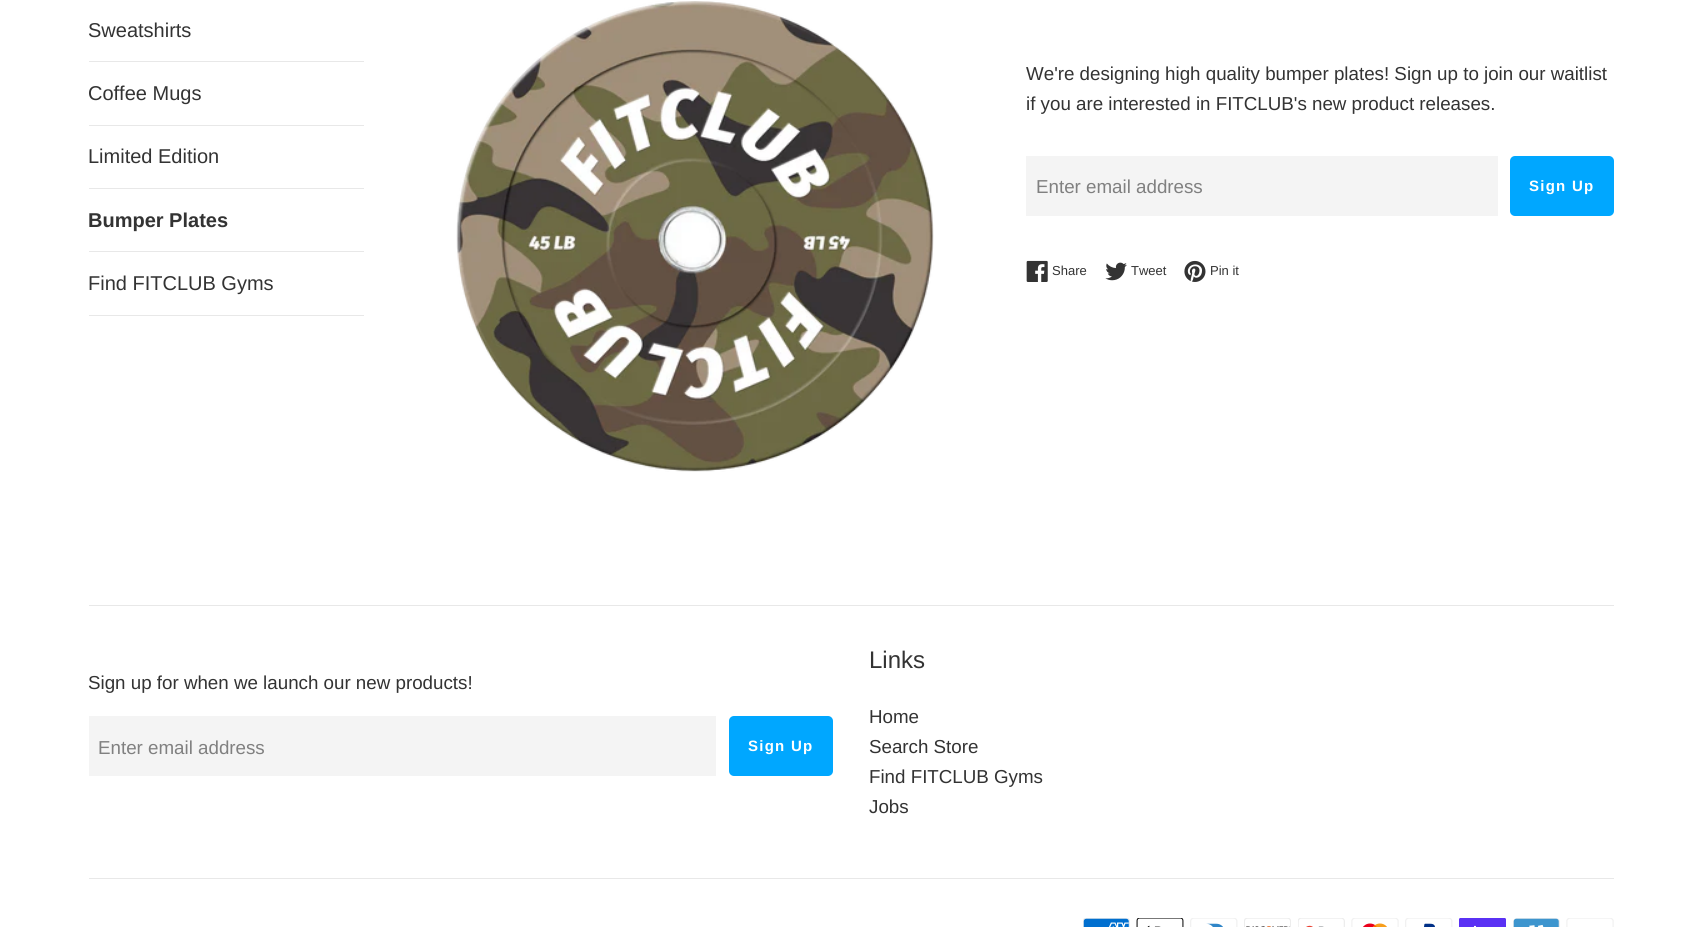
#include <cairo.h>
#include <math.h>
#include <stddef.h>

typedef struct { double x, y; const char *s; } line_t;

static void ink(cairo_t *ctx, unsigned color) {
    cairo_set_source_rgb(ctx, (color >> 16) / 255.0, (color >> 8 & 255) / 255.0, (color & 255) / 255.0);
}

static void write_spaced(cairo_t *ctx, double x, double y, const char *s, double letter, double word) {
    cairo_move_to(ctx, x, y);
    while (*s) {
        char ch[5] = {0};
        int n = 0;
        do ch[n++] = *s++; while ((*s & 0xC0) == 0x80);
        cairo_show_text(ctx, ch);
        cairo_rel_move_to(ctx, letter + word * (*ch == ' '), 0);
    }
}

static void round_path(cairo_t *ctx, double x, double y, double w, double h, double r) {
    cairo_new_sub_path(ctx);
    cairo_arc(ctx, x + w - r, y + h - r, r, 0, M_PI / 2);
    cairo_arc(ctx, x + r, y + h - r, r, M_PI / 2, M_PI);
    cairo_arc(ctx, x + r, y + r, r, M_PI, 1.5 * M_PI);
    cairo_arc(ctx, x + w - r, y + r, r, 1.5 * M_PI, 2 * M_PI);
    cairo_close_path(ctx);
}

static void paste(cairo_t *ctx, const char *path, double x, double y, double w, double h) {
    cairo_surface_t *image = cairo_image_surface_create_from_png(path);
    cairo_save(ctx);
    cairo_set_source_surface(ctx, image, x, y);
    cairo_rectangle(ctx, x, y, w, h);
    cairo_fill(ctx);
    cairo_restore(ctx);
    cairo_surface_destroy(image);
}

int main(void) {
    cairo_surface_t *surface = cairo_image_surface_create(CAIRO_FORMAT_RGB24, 1701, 927);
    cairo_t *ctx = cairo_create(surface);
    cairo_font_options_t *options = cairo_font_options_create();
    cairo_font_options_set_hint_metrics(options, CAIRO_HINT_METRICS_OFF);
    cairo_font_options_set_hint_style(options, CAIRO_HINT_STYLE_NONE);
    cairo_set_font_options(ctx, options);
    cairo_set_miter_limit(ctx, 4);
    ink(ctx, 0xFFFFFF);
    cairo_paint(ctx);
    ink(ctx, 0xE8E8E8);
    cairo_rectangle(ctx, 89, 61, 275, 1);
    cairo_fill(ctx);
    cairo_select_font_face(ctx, "Arimo", CAIRO_FONT_SLANT_NORMAL, CAIRO_FONT_WEIGHT_NORMAL);
    cairo_set_font_size(ctx, 20);
    ink(ctx, 0x333333);
    cairo_move_to(ctx, 88, 37);
    cairo_show_text(ctx, "Sweatshirts");
    ink(ctx, 0xE8E8E8);
    cairo_rectangle(ctx, 89, 125, 275, 1);
    cairo_fill(ctx);
    ink(ctx, 0x333333);
    cairo_move_to(ctx, 88, 100);
    cairo_show_text(ctx, "Coffee Mugs");
    ink(ctx, 0xE8E8E8);
    cairo_rectangle(ctx, 89, 188, 275, 1);
    cairo_fill(ctx);
    ink(ctx, 0x333333);
    cairo_move_to(ctx, 88, 163);
    cairo_show_text(ctx, "Limited Edition");
    ink(ctx, 0xE8E8E8);
    cairo_rectangle(ctx, 89, 251, 275, 1);
    cairo_fill(ctx);
    cairo_select_font_face(ctx, "Arimo", CAIRO_FONT_SLANT_NORMAL, CAIRO_FONT_WEIGHT_BOLD);
    ink(ctx, 0x333333);
    cairo_move_to(ctx, 88, 227);
    cairo_show_text(ctx, "Bumper Plates");
    ink(ctx, 0xE8E8E8);
    cairo_rectangle(ctx, 89, 315, 275, 1);
    cairo_fill(ctx);
    cairo_select_font_face(ctx, "Arimo", CAIRO_FONT_SLANT_NORMAL, CAIRO_FONT_WEIGHT_NORMAL);
    ink(ctx, 0x333333);
    cairo_move_to(ctx, 88, 290);
    cairo_show_text(ctx, "Find FITCLUB Gyms");
    paste(ctx, "media/1.png", 456, 1, 478, 471);
    cairo_set_font_size(ctx, 18.75);
    cairo_move_to(ctx, 1026, 80);
    cairo_show_text(ctx, "We're designing high quality bumper plates! Sign up to join our waitlist");
    cairo_move_to(ctx, 1026, 110);
    cairo_show_text(ctx, "if you are interested in FITCLUB's new product releases.");
    ink(ctx, 0xF4F4F4);
    cairo_rectangle(ctx, 1026, 156, 472, 60);
    cairo_fill(ctx);
    ink(ctx, 0x808080);
    cairo_move_to(ctx, 1036, 193);
    cairo_show_text(ctx, "Enter email address");
    ink(ctx, 0x00A7FF);
    round_path(ctx, 1510, 156, 104, 60, 5);
    cairo_fill(ctx);
    cairo_select_font_face(ctx, "Arimo", CAIRO_FONT_SLANT_NORMAL, CAIRO_FONT_WEIGHT_BOLD);
    cairo_set_font_size(ctx, 15);
    ink(ctx, 0xFFFFFF);
    write_spaced(ctx, 1529, 191, "Sign Up", 1.25, 0);
    paste(ctx, "media/2.png", 1026, 260, 22, 22);
    cairo_select_font_face(ctx, "Arimo", CAIRO_FONT_SLANT_NORMAL, CAIRO_FONT_WEIGHT_NORMAL);
    cairo_set_font_size(ctx, 13);
    ink(ctx, 0x333333);
    cairo_move_to(ctx, 1052, 275);
    cairo_show_text(ctx, "Share");
    paste(ctx, "media/3.png", 1105, 262, 22, 19);
    cairo_move_to(ctx, 1131, 275);
    cairo_show_text(ctx, "Tweet");
    paste(ctx, "media/4.png", 1184, 260, 22, 22);
    cairo_move_to(ctx, 1210, 275);
    cairo_show_text(ctx, "Pin it");
    ink(ctx, 0xE8E8E8);
    cairo_rectangle(ctx, 89, 605, 1525, 1);
    cairo_fill(ctx);
    cairo_set_font_size(ctx, 18.75);
    ink(ctx, 0x333333);
    cairo_move_to(ctx, 88, 689);
    cairo_show_text(ctx, "Sign up for when we launch our new products!");
    ink(ctx, 0xF4F4F4);
    cairo_rectangle(ctx, 89, 716, 627, 60);
    cairo_fill(ctx);
    ink(ctx, 0x808080);
    cairo_move_to(ctx, 98, 754);
    cairo_show_text(ctx, "Enter email address");
    ink(ctx, 0x00A7FF);
    round_path(ctx, 729, 716, 104, 60, 5);
    cairo_fill(ctx);
    cairo_select_font_face(ctx, "Arimo", CAIRO_FONT_SLANT_NORMAL, CAIRO_FONT_WEIGHT_BOLD);
    cairo_set_font_size(ctx, 15);
    ink(ctx, 0xFFFFFF);
    write_spaced(ctx, 748, 751, "Sign Up", 1.25, 0);
    cairo_select_font_face(ctx, "Arimo", CAIRO_FONT_SLANT_NORMAL, CAIRO_FONT_WEIGHT_NORMAL);
    cairo_set_font_size(ctx, 24);
    ink(ctx, 0x333333);
    cairo_move_to(ctx, 869, 668);
    cairo_show_text(ctx, "Links");
    cairo_set_font_size(ctx, 18.75);
    {
        static const line_t items[] = {
            {869, 723, "Home"},
            {869, 753, "Search Store"},
            {869, 783, "Find FITCLUB Gyms"},
            {869, 813, "Jobs"},
        };
        for (size_t i = 0; i < sizeof items / sizeof *items; i++) {
            cairo_move_to(ctx, items[i].x, items[i].y);
            cairo_show_text(ctx, items[i].s);
        }
    }
    ink(ctx, 0xE8E8E8);
    cairo_rectangle(ctx, 89, 878, 1525, 1);
    cairo_fill(ctx);
    paste(ctx, "media/5.png", 1083, 918, 47, 9);
    paste(ctx, "media/6.png", 1136, 918, 48, 9);
    paste(ctx, "media/7.png", 1190, 918, 48, 9);
    paste(ctx, "media/8.png", 1244, 918, 47, 9);
    paste(ctx, "media/9.png", 1298, 918, 47, 9);
    paste(ctx, "media/10.png", 1351, 918, 48, 9);
    paste(ctx, "media/11.png", 1405, 918, 48, 9);
    paste(ctx, "media/12.png", 1459, 918, 47, 9);
    paste(ctx, "media/13.png", 1513, 918, 47, 9);
    paste(ctx, "media/14.png", 1566, 918, 48, 9);
    cairo_surface_write_to_png(surface, "image.png");
    cairo_font_options_destroy(options);
    cairo_destroy(ctx);
    cairo_surface_destroy(surface);
    return 0;
}
